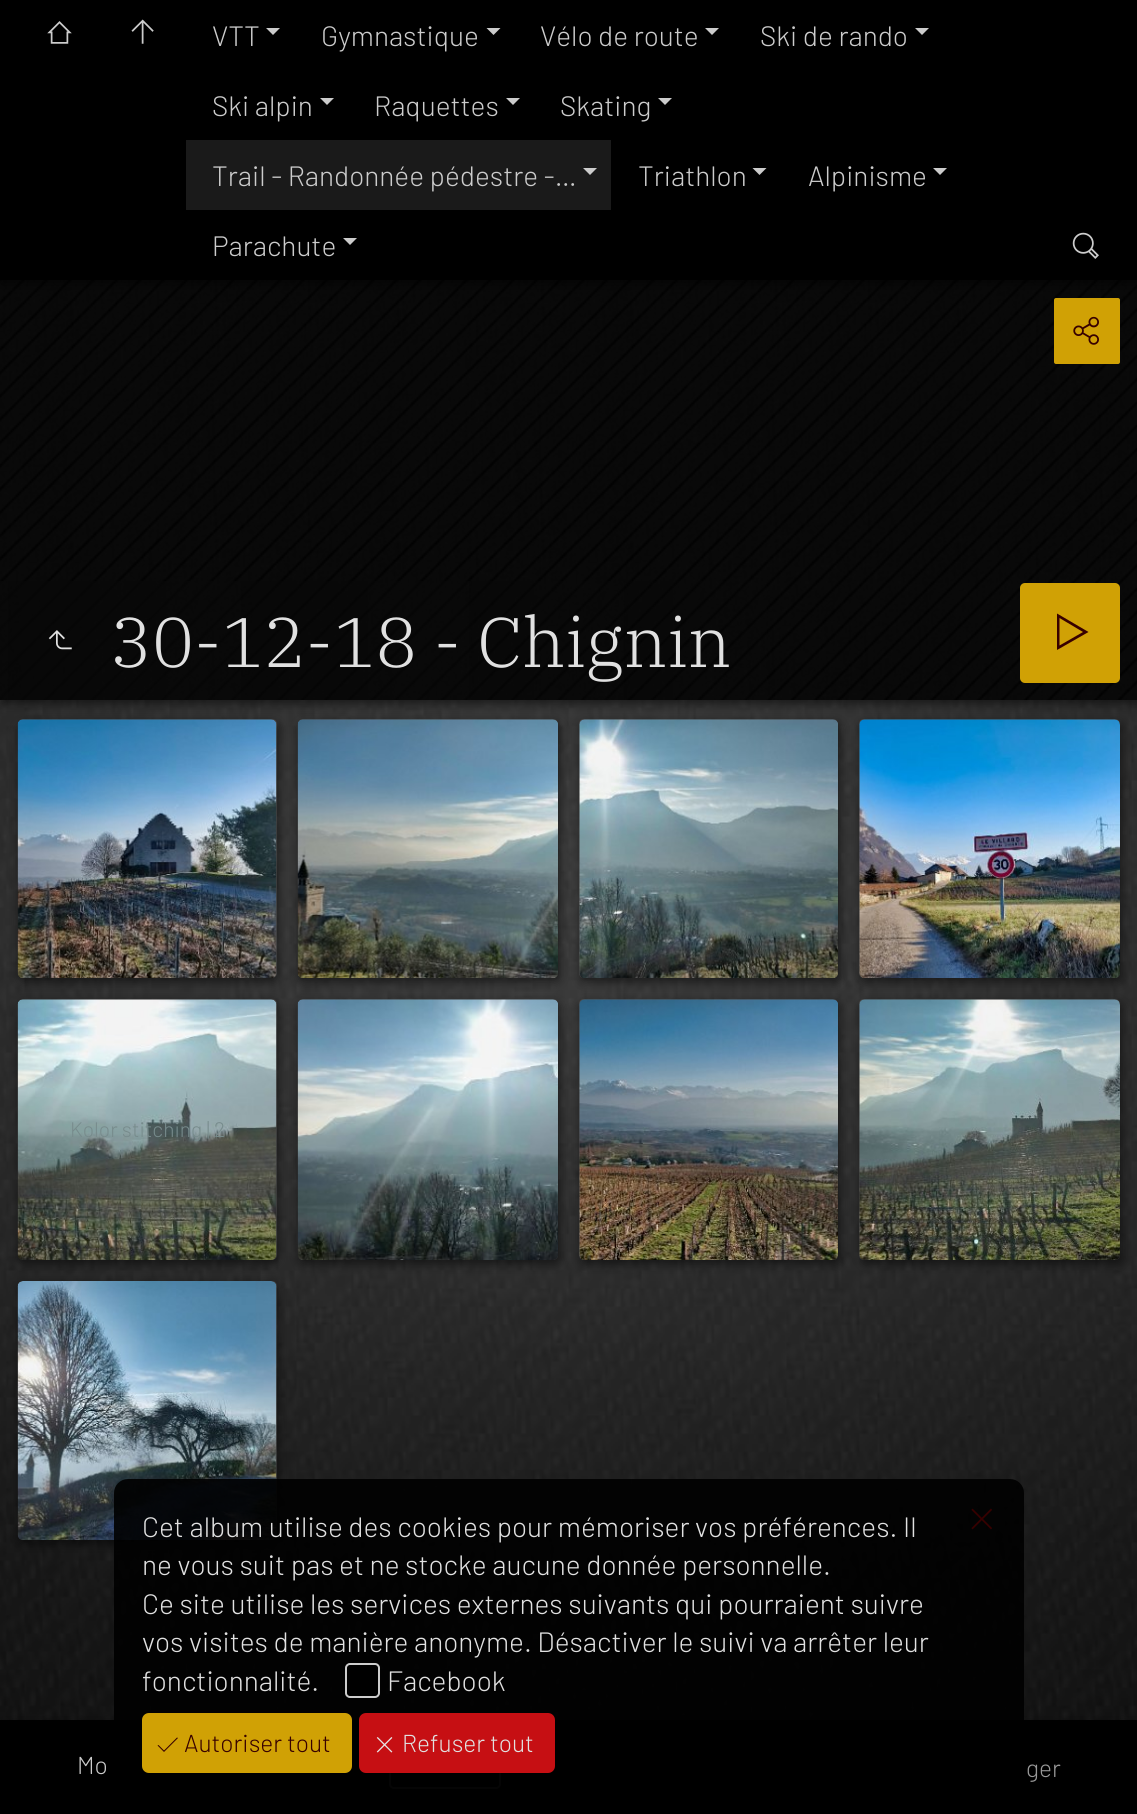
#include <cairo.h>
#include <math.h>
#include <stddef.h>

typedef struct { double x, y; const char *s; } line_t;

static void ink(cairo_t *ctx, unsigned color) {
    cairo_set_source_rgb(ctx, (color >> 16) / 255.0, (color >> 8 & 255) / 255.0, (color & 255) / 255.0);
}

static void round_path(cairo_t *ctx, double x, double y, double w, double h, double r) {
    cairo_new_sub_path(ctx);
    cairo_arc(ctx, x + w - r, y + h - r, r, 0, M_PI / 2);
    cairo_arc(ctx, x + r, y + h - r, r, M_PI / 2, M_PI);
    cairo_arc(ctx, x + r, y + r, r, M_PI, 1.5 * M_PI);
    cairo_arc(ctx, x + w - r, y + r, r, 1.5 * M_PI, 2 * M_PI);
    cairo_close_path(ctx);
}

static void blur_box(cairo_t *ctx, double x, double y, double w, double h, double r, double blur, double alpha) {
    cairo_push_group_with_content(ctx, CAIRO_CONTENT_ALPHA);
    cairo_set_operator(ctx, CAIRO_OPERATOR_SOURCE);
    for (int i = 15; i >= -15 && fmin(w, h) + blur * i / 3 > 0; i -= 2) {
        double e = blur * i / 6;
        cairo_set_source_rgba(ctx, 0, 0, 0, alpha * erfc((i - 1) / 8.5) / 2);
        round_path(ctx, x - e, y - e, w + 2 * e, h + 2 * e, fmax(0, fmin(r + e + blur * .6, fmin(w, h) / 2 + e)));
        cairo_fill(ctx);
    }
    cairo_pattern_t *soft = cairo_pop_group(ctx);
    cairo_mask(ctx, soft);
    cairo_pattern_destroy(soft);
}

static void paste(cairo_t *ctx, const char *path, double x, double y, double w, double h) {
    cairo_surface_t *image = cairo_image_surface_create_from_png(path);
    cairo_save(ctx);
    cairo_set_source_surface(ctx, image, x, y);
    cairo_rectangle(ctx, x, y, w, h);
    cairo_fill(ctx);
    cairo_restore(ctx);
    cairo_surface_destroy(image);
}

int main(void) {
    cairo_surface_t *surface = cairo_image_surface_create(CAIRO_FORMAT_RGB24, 1137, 1814);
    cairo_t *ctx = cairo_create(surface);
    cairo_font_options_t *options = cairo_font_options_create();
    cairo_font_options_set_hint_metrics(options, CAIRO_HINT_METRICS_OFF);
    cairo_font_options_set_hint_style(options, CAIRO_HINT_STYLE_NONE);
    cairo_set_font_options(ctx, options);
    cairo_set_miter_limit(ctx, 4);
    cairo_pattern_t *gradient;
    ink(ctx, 0xFFFFFF);
    cairo_paint(ctx);
    paste(ctx, "media/1.png", 0, 700, 1137, 1020);
    ink(ctx, 0x000000);
    blur_box(ctx, 2, 284, 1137, 420, 0, 5, 0.52);
    ink(ctx, 0x000000);
    cairo_rectangle(ctx, 0, 280, 1137, 420);
    cairo_fill(ctx);
    paste(ctx, "media/5.png", 0, 280, 1137, 420);
    ink(ctx, 0xD0A105);
    round_path(ctx, 1054, 298, 66, 66, 2);
    cairo_fill(ctx);
    ink(ctx, 0x000000);
    blur_box(ctx, 2, 4, 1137, 280, 0, 5, 0.52);
    ink(ctx, 0x000000);
    cairo_rectangle(ctx, 0, 0, 1137, 280);
    cairo_fill(ctx);
    paste(ctx, "media/2.png", 47, 21, 25, 23);
    paste(ctx, "media/3.png", 131, 19, 23, 25);
    cairo_select_font_face(ctx, "Barlow Light", CAIRO_FONT_SLANT_NORMAL, CAIRO_FONT_WEIGHT_NORMAL);
    cairo_set_font_size(ctx, 28);
    ink(ctx, 0xCCCCCC);
    cairo_move_to(ctx, 212, 46);
    cairo_show_text(ctx, "VTT");
    cairo_new_path(ctx);
    cairo_move_to(ctx, 266, 28);
    cairo_line_to(ctx, 280, 28);
    cairo_line_to(ctx, 273, 35);
    cairo_close_path(ctx);
    cairo_fill(ctx);
    cairo_move_to(ctx, 321, 46);
    cairo_show_text(ctx, "Gymnastique");
    cairo_new_path(ctx);
    cairo_move_to(ctx, 486.5, 28);
    cairo_line_to(ctx, 500.5, 28);
    cairo_line_to(ctx, 493.5, 35);
    cairo_close_path(ctx);
    cairo_fill(ctx);
    cairo_move_to(ctx, 540, 46);
    cairo_show_text(ctx, "Vélo de route");
    cairo_new_path(ctx);
    cairo_move_to(ctx, 705, 28);
    cairo_line_to(ctx, 719, 28);
    cairo_line_to(ctx, 712, 35);
    cairo_close_path(ctx);
    cairo_fill(ctx);
    cairo_move_to(ctx, 760, 46);
    cairo_show_text(ctx, "Ski de rando");
    cairo_new_path(ctx);
    cairo_move_to(ctx, 915, 28);
    cairo_line_to(ctx, 929, 28);
    cairo_line_to(ctx, 922, 35);
    cairo_close_path(ctx);
    cairo_fill(ctx);
    cairo_move_to(ctx, 212, 116);
    cairo_show_text(ctx, "Ski alpin");
    cairo_new_path(ctx);
    cairo_move_to(ctx, 320, 98);
    cairo_line_to(ctx, 334, 98);
    cairo_line_to(ctx, 327, 105);
    cairo_close_path(ctx);
    cairo_fill(ctx);
    cairo_move_to(ctx, 374, 116);
    cairo_show_text(ctx, "Raquettes");
    cairo_new_path(ctx);
    cairo_move_to(ctx, 506, 98);
    cairo_line_to(ctx, 520, 98);
    cairo_line_to(ctx, 513, 105);
    cairo_close_path(ctx);
    cairo_fill(ctx);
    cairo_move_to(ctx, 560, 116);
    cairo_show_text(ctx, "Skating");
    cairo_new_path(ctx);
    cairo_move_to(ctx, 658, 98);
    cairo_line_to(ctx, 672, 98);
    cairo_line_to(ctx, 665, 105);
    cairo_close_path(ctx);
    cairo_fill(ctx);
    ink(ctx, 0x1A1A1A);
    cairo_rectangle(ctx, 186, 140, 425, 70);
    cairo_fill(ctx);
    ink(ctx, 0xCCCCCC);
    cairo_move_to(ctx, 212, 186);
    cairo_show_text(ctx, "Trail - Randonnée pédestre -…");
    cairo_new_path(ctx);
    cairo_move_to(ctx, 583, 168);
    cairo_line_to(ctx, 597, 168);
    cairo_line_to(ctx, 590, 175);
    cairo_close_path(ctx);
    cairo_fill(ctx);
    cairo_move_to(ctx, 638, 186);
    cairo_show_text(ctx, "Triathlon");
    cairo_new_path(ctx);
    cairo_move_to(ctx, 752.5, 168);
    cairo_line_to(ctx, 766.5, 168);
    cairo_line_to(ctx, 759.5, 175);
    cairo_close_path(ctx);
    cairo_fill(ctx);
    cairo_move_to(ctx, 808, 186);
    cairo_show_text(ctx, "Alpinisme");
    cairo_new_path(ctx);
    cairo_move_to(ctx, 933, 168);
    cairo_line_to(ctx, 947, 168);
    cairo_line_to(ctx, 940, 175);
    cairo_close_path(ctx);
    cairo_fill(ctx);
    cairo_move_to(ctx, 212, 256);
    cairo_show_text(ctx, "Parachute");
    cairo_new_path(ctx);
    cairo_move_to(ctx, 343, 238);
    cairo_line_to(ctx, 357, 238);
    cairo_line_to(ctx, 350, 245);
    cairo_close_path(ctx);
    cairo_fill(ctx);
    paste(ctx, "media/4.png", 1072, 232, 27, 27);
    gradient = cairo_pattern_create_linear(0, 641, 767, 641);
    cairo_pattern_add_color_stop_rgba(gradient, 0, 0.031, 0.031, 0.031, 0.7);
    cairo_pattern_add_color_stop_rgba(gradient, 0.6, 0.031, 0.031, 0.031, 0.45);
    cairo_pattern_add_color_stop_rgba(gradient, 1, 0.031, 0.031, 0.031, 0.2);
    cairo_set_source(ctx, gradient);
    cairo_pattern_destroy(gradient);
    cairo_new_path(ctx);
    cairo_move_to(ctx, 0, 581);
    cairo_line_to(ctx, 760, 581);
    cairo_curve_to(ctx, 764, 581, 767, 584, 767, 588);
    cairo_line_to(ctx, 767, 700);
    cairo_line_to(ctx, 0, 700);
    cairo_close_path(ctx);
    cairo_fill(ctx);
    paste(ctx, "media/6.png", 48, 630, 24, 20);
    cairo_select_font_face(ctx, "IBM Plex Serif Light", CAIRO_FONT_SLANT_NORMAL, CAIRO_FONT_WEIGHT_NORMAL);
    cairo_set_font_size(ctx, 70);
    ink(ctx, 0xE1E1E1);
    cairo_move_to(ctx, 110, 667);
    cairo_show_text(ctx, "30-12-18 - Chignin");
    paste(ctx, "media/7.png", 1073, 316, 26, 29);
    ink(ctx, 0xD0A105);
    round_path(ctx, 1020, 583, 100, 100, 5);
    cairo_fill(ctx);
    ink(ctx, 0x370000);
    cairo_new_path(ctx);
    cairo_move_to(ctx, 1059.5, 618);
    cairo_line_to(ctx, 1083, 632);
    cairo_line_to(ctx, 1059.5, 645.5);
    cairo_close_path(ctx);
    cairo_move_to(ctx, 1057, 613.5);
    cairo_line_to(ctx, 1057, 650);
    cairo_line_to(ctx, 1088.5, 632);
    cairo_close_path(ctx);
    cairo_fill(ctx);
    ink(ctx, 0x000000);
    blur_box(ctx, 19, 723, 259, 259, 5, 5, 0.52);
    cairo_set_source_rgba(ctx, 0.933, 0.933, 0.933, 0.13);
    round_path(ctx, 18, 719, 259, 259, 5);
    cairo_fill(ctx);
    paste(ctx, "media/8.png", 17, 719, 260, 259);
    ink(ctx, 0x000000);
    blur_box(ctx, 299, 723, 261, 259, 5, 5, 0.52);
    cairo_set_source_rgba(ctx, 0.933, 0.933, 0.933, 0.13);
    round_path(ctx, 298, 719, 260, 259, 5);
    cairo_fill(ctx);
    paste(ctx, "media/9.png", 297, 719, 261, 259);
    ink(ctx, 0x000000);
    blur_box(ctx, 581, 723, 259, 259, 5, 5, 0.52);
    cairo_set_source_rgba(ctx, 0.933, 0.933, 0.933, 0.13);
    round_path(ctx, 579, 719, 259, 259, 5);
    cairo_fill(ctx);
    paste(ctx, "media/10.png", 579, 719, 259, 259);
    ink(ctx, 0x000000);
    blur_box(ctx, 861, 723, 261, 259, 5, 5, 0.52);
    cairo_set_source_rgba(ctx, 0.933, 0.933, 0.933, 0.13);
    round_path(ctx, 859, 719, 261, 259, 5);
    cairo_fill(ctx);
    paste(ctx, "media/11.png", 859, 719, 261, 259);
    ink(ctx, 0x000000);
    blur_box(ctx, 19, 1003, 259, 261, 5, 5, 0.52);
    cairo_set_source_rgba(ctx, 0.933, 0.933, 0.933, 0.13);
    round_path(ctx, 18, 999, 259, 261, 5);
    cairo_fill(ctx);
    paste(ctx, "media/12.png", 17, 999, 260, 261);
    cairo_select_font_face(ctx, "Barlow Light", CAIRO_FONT_SLANT_NORMAL, CAIRO_FONT_WEIGHT_NORMAL);
    cairo_set_font_size(ctx, 21);
    ink(ctx, 0x778B8C);
    cairo_move_to(ctx, 70, 1137);
    cairo_show_text(ctx, "Kolor stitching | 2");
    ink(ctx, 0x000000);
    blur_box(ctx, 581, 1003, 259, 261, 5, 5, 0.52);
    cairo_set_source_rgba(ctx, 0.933, 0.933, 0.933, 0.13);
    round_path(ctx, 579, 999, 259, 261, 5);
    cairo_fill(ctx);
    paste(ctx, "media/13.png", 579, 999, 259, 261);
    ink(ctx, 0x000000);
    blur_box(ctx, 861, 1003, 261, 261, 5, 5, 0.52);
    cairo_set_source_rgba(ctx, 0.933, 0.933, 0.933, 0.13);
    round_path(ctx, 859, 999, 261, 261, 5);
    cairo_fill(ctx);
    paste(ctx, "media/14.png", 859, 999, 261, 261);
    ink(ctx, 0x000000);
    blur_box(ctx, 299, 1003, 261, 261, 5, 5, 0.52);
    cairo_set_source_rgba(ctx, 0.933, 0.933, 0.933, 0.13);
    round_path(ctx, 298, 999, 260, 261, 5);
    cairo_fill(ctx);
    paste(ctx, "media/15.png", 297, 999, 261, 261);
    ink(ctx, 0x3B4545);
    cairo_move_to(ctx, 417, 1221);
    cairo_show_text(ctx, ".");
    ink(ctx, 0x262F2F);
    cairo_move_to(ctx, 488, 1249);
    cairo_show_text(ctx, ".");
    ink(ctx, 0x000000);
    blur_box(ctx, 19, 1285, 259, 259, 5, 5, 0.52);
    cairo_set_source_rgba(ctx, 0.933, 0.933, 0.933, 0.13);
    round_path(ctx, 18, 1281, 259, 259, 5);
    cairo_fill(ctx);
    paste(ctx, "media/16.png", 17, 1281, 260, 259);
    ink(ctx, 0x000000);
    blur_box(ctx, 2, 1724, 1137, 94, 0, 5, 0.52);
    ink(ctx, 0x000000);
    cairo_rectangle(ctx, 0, 1720, 1137, 94);
    cairo_fill(ctx);
    round_path(ctx, 390, 1748, 110, 40, 4);
    ink(ctx, 0x333333);
    cairo_stroke(ctx);
    cairo_set_source_rgba(ctx, 0, 0, 0, 0.9);
    round_path(ctx, 114, 1479, 910, 322, 14);
    cairo_fill(ctx);
    cairo_set_font_size(ctx, 28);
    ink(ctx, 0xE1E1E1);
    {
        static const line_t items[] = {
            {142, 1537, "Cet album utilise des cookies pour mémoriser vos préférences. Il"},
            {142, 1575, "ne vous suit pas et ne stocke aucune donnée personnelle."},
            {142, 1614, "Ce site utilise les services externes suivants qui pourraient suivre"},
            {142, 1652, "vos visites de manière anonyme. Désactiver le suivi va arrêter leur"},
            {142, 1691, "fonctionnalité."},
        };
        for (size_t i = 0; i < sizeof items / sizeof *items; i++) {
            cairo_move_to(ctx, items[i].x, items[i].y);
            cairo_show_text(ctx, items[i].s);
        }
    }
    ink(ctx, 0x000000);
    round_path(ctx, 346, 1664, 33, 33, 4);
    cairo_fill_preserve(ctx);
    ink(ctx, 0xCCCCCC);
    cairo_stroke(ctx);
    ink(ctx, 0xE1E1E1);
    cairo_move_to(ctx, 387, 1691);
    cairo_show_text(ctx, "Facebook");
    paste(ctx, "media/17.png", 971, 1508, 21, 22);
    ink(ctx, 0xD0A105);
    round_path(ctx, 142, 1713, 210, 60, 7);
    cairo_fill(ctx);
    ink(ctx, 0x370000);
    cairo_new_path(ctx);
    cairo_move_to(ctx, 177, 1737.5);
    cairo_line_to(ctx, 164, 1750.5);
    cairo_line_to(ctx, 158.5, 1745);
    cairo_line_to(ctx, 157.5, 1745.5);
    cairo_line_to(ctx, 164, 1752);
    cairo_line_to(ctx, 178, 1738);
    cairo_close_path(ctx);
    cairo_fill(ctx);
    cairo_set_font_size(ctx, 24.5);
    cairo_move_to(ctx, 184, 1752);
    cairo_show_text(ctx, "Autoriser tout");
    ink(ctx, 0xC60F13);
    round_path(ctx, 359, 1713, 196, 60, 7);
    cairo_fill(ctx);
    paste(ctx, "media/18.png", 376, 1737, 17, 16);
    ink(ctx, 0xE1E1E1);
    cairo_move_to(ctx, 402, 1752);
    cairo_show_text(ctx, "Refuser tout");
    ink(ctx, 0xCCCCCC);
    cairo_move_to(ctx, 77, 1774);
    cairo_show_text(ctx, "Mo");
    ink(ctx, 0x999999);
    cairo_move_to(ctx, 1026, 1777);
    cairo_show_text(ctx, "ger");
    cairo_surface_write_to_png(surface, "image.png");
    cairo_font_options_destroy(options);
    cairo_destroy(ctx);
    cairo_surface_destroy(surface);
    return 0;
}
